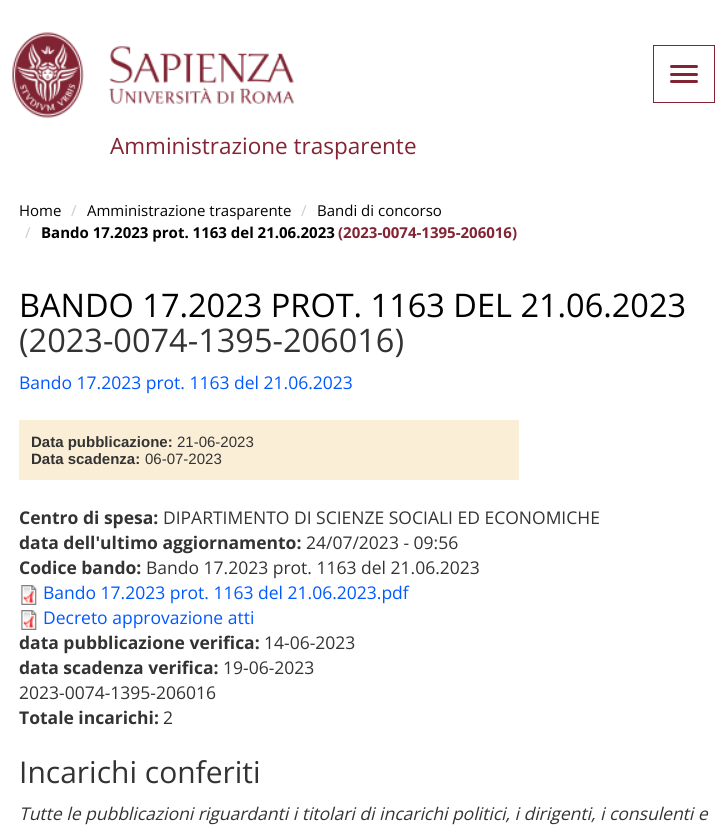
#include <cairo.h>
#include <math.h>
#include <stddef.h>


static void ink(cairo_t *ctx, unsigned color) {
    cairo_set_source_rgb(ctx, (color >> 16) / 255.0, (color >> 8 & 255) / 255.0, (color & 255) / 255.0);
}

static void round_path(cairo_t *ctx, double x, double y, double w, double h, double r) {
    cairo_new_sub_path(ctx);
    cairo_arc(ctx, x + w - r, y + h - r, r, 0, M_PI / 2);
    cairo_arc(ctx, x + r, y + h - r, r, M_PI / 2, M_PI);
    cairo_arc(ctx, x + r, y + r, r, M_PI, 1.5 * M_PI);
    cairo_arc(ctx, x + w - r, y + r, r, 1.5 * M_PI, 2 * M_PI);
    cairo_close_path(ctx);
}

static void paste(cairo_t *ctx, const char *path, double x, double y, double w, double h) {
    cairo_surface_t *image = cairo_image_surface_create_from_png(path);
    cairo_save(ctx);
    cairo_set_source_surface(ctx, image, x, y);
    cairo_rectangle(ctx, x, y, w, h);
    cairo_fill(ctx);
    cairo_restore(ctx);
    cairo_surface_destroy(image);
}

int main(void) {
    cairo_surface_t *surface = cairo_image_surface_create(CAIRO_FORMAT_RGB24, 727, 825);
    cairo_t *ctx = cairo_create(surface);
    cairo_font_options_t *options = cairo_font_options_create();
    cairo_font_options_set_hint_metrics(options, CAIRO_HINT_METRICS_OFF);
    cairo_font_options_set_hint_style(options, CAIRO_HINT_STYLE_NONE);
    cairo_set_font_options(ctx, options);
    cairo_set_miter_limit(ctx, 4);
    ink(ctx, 0xFFFFFF);
    cairo_paint(ctx);
    paste(ctx, "media/1.png", 12, 32, 282, 86);
    cairo_rectangle(ctx, 653.5, 45.5, 61, 57);
    ink(ctx, 0x822433);
    cairo_set_line_width(ctx, 1);
    cairo_stroke(ctx);
    round_path(ctx, 670, 65, 28, 3, 1.5);
    cairo_fill(ctx);
    round_path(ctx, 670, 73, 28, 3, 1.5);
    cairo_fill(ctx);
    round_path(ctx, 670, 80, 28, 3, 1.5);
    cairo_fill(ctx);
    cairo_select_font_face(ctx, "Open Sans", CAIRO_FONT_SLANT_NORMAL, CAIRO_FONT_WEIGHT_NORMAL);
    cairo_set_font_size(ctx, 22.5);
    cairo_move_to(ctx, 110, 154);
    cairo_show_text(ctx, "Amministrazione trasparente");
    cairo_set_font_size(ctx, 15);
    ink(ctx, 0x000000);
    cairo_move_to(ctx, 19, 216);
    cairo_show_text(ctx, "Home");
    ink(ctx, 0xCCCCCC);
    cairo_move_to(ctx, 71, 216);
    cairo_show_text(ctx, "/");
    ink(ctx, 0x000000);
    cairo_move_to(ctx, 87, 216);
    cairo_show_text(ctx, "Amministrazione trasparente");
    ink(ctx, 0xCCCCCC);
    cairo_move_to(ctx, 301, 216);
    cairo_show_text(ctx, "/");
    ink(ctx, 0x000000);
    cairo_move_to(ctx, 317, 216);
    cairo_show_text(ctx, "Bandi di concorso");
    ink(ctx, 0xCCCCCC);
    cairo_move_to(ctx, 25, 238);
    cairo_show_text(ctx, "/");
    cairo_select_font_face(ctx, "Open Sans", CAIRO_FONT_SLANT_NORMAL, CAIRO_FONT_WEIGHT_BOLD);
    ink(ctx, 0x000000);
    cairo_move_to(ctx, 41, 238);
    cairo_show_text(ctx, "Bando 17.2023 prot. 1163 del 21.06.2023");
    ink(ctx, 0x822433);
    cairo_move_to(ctx, 338, 238);
    cairo_show_text(ctx, "(2023-0074-1395-206016)");
    cairo_select_font_face(ctx, "Open Sans", CAIRO_FONT_SLANT_NORMAL, CAIRO_FONT_WEIGHT_NORMAL);
    cairo_set_font_size(ctx, 32.5);
    ink(ctx, 0x000000);
    cairo_move_to(ctx, 19, 317);
    cairo_show_text(ctx, "BANDO 17.2023 PROT. 1163 DEL 21.06.2023");
    ink(ctx, 0x333333);
    cairo_move_to(ctx, 19, 352);
    cairo_show_text(ctx, "(2023-0074-1395-206016)");
    cairo_set_font_size(ctx, 17.5);
    ink(ctx, 0x0058FF);
    cairo_move_to(ctx, 19, 389);
    cairo_show_text(ctx, "Bando 17.2023 prot. 1163 del 21.06.2023");
    ink(ctx, 0xFAEED6);
    cairo_rectangle(ctx, 19, 420, 500, 60);
    cairo_fill(ctx);
    cairo_select_font_face(ctx, "Liberation Sans", CAIRO_FONT_SLANT_NORMAL, CAIRO_FONT_WEIGHT_BOLD);
    cairo_set_font_size(ctx, 15);
    ink(ctx, 0x333333);
    cairo_move_to(ctx, 31, 447);
    cairo_show_text(ctx, "Data pubblicazione:");
    cairo_select_font_face(ctx, "Liberation Sans", CAIRO_FONT_SLANT_NORMAL, CAIRO_FONT_WEIGHT_NORMAL);
    cairo_move_to(ctx, 177, 447);
    cairo_show_text(ctx, "21-06-2023");
    cairo_select_font_face(ctx, "Liberation Sans", CAIRO_FONT_SLANT_NORMAL, CAIRO_FONT_WEIGHT_BOLD);
    cairo_move_to(ctx, 31, 464);
    cairo_show_text(ctx, "Data scadenza:");
    cairo_select_font_face(ctx, "Liberation Sans", CAIRO_FONT_SLANT_NORMAL, CAIRO_FONT_WEIGHT_NORMAL);
    cairo_move_to(ctx, 145, 464);
    cairo_show_text(ctx, "06-07-2023");
    cairo_select_font_face(ctx, "Open Sans", CAIRO_FONT_SLANT_NORMAL, CAIRO_FONT_WEIGHT_BOLD);
    cairo_set_font_size(ctx, 17.5);
    cairo_move_to(ctx, 19, 524);
    cairo_show_text(ctx, "Centro di spesa:");
    cairo_select_font_face(ctx, "Open Sans", CAIRO_FONT_SLANT_NORMAL, CAIRO_FONT_WEIGHT_NORMAL);
    cairo_move_to(ctx, 163, 524);
    cairo_show_text(ctx, "DIPARTIMENTO DI SCIENZE SOCIALI ED ECONOMICHE");
    cairo_select_font_face(ctx, "Open Sans", CAIRO_FONT_SLANT_NORMAL, CAIRO_FONT_WEIGHT_BOLD);
    cairo_move_to(ctx, 19, 549);
    cairo_show_text(ctx, "data dell'ultimo aggiornamento:");
    cairo_select_font_face(ctx, "Open Sans", CAIRO_FONT_SLANT_NORMAL, CAIRO_FONT_WEIGHT_NORMAL);
    cairo_move_to(ctx, 306, 549);
    cairo_show_text(ctx, "24/07/2023 - 09:56");
    cairo_select_font_face(ctx, "Open Sans", CAIRO_FONT_SLANT_NORMAL, CAIRO_FONT_WEIGHT_BOLD);
    cairo_move_to(ctx, 19, 574);
    cairo_show_text(ctx, "Codice bando:");
    cairo_select_font_face(ctx, "Open Sans", CAIRO_FONT_SLANT_NORMAL, CAIRO_FONT_WEIGHT_NORMAL);
    cairo_move_to(ctx, 146, 574);
    cairo_show_text(ctx, "Bando 17.2023 prot. 1163 del 21.06.2023");
    paste(ctx, "media/2.png", 21, 585, 16, 20);
    ink(ctx, 0x0058FF);
    cairo_move_to(ctx, 43, 599);
    cairo_show_text(ctx, "Bando 17.2023 prot. 1163 del 21.06.2023.pdf");
    paste(ctx, "media/3.png", 21, 610, 16, 20);
    cairo_move_to(ctx, 43, 624);
    cairo_show_text(ctx, "Decreto approvazione atti");
    cairo_select_font_face(ctx, "Open Sans", CAIRO_FONT_SLANT_NORMAL, CAIRO_FONT_WEIGHT_BOLD);
    ink(ctx, 0x333333);
    cairo_move_to(ctx, 19, 649);
    cairo_show_text(ctx, "data pubblicazione verifica:");
    cairo_select_font_face(ctx, "Open Sans", CAIRO_FONT_SLANT_NORMAL, CAIRO_FONT_WEIGHT_NORMAL);
    cairo_move_to(ctx, 264, 649);
    cairo_show_text(ctx, "14-06-2023");
    cairo_select_font_face(ctx, "Open Sans", CAIRO_FONT_SLANT_NORMAL, CAIRO_FONT_WEIGHT_BOLD);
    cairo_move_to(ctx, 19, 674);
    cairo_show_text(ctx, "data scadenza verifica:");
    cairo_select_font_face(ctx, "Open Sans", CAIRO_FONT_SLANT_NORMAL, CAIRO_FONT_WEIGHT_NORMAL);
    cairo_move_to(ctx, 223, 674);
    cairo_show_text(ctx, "19-06-2023");
    cairo_move_to(ctx, 19, 699);
    cairo_show_text(ctx, "2023-0074-1395-206016");
    cairo_select_font_face(ctx, "Open Sans", CAIRO_FONT_SLANT_NORMAL, CAIRO_FONT_WEIGHT_BOLD);
    cairo_move_to(ctx, 19, 724);
    cairo_show_text(ctx, "Totale incarichi:");
    cairo_select_font_face(ctx, "Open Sans", CAIRO_FONT_SLANT_NORMAL, CAIRO_FONT_WEIGHT_NORMAL);
    cairo_move_to(ctx, 163, 724);
    cairo_show_text(ctx, "2");
    cairo_set_font_size(ctx, 30);
    cairo_move_to(ctx, 19, 783);
    cairo_show_text(ctx, "Incarichi conferiti");
    cairo_select_font_face(ctx, "Open Sans", CAIRO_FONT_SLANT_ITALIC, CAIRO_FONT_WEIGHT_NORMAL);
    cairo_set_font_size(ctx, 17.5);
    cairo_move_to(ctx, 19, 820);
    cairo_show_text(ctx, "Tutte le pubblicazioni riguardanti i titolari di incarichi politici, i dirigenti, i consulenti e");
    cairo_surface_write_to_png(surface, "image.png");
    cairo_font_options_destroy(options);
    cairo_destroy(ctx);
    cairo_surface_destroy(surface);
    return 0;
}
